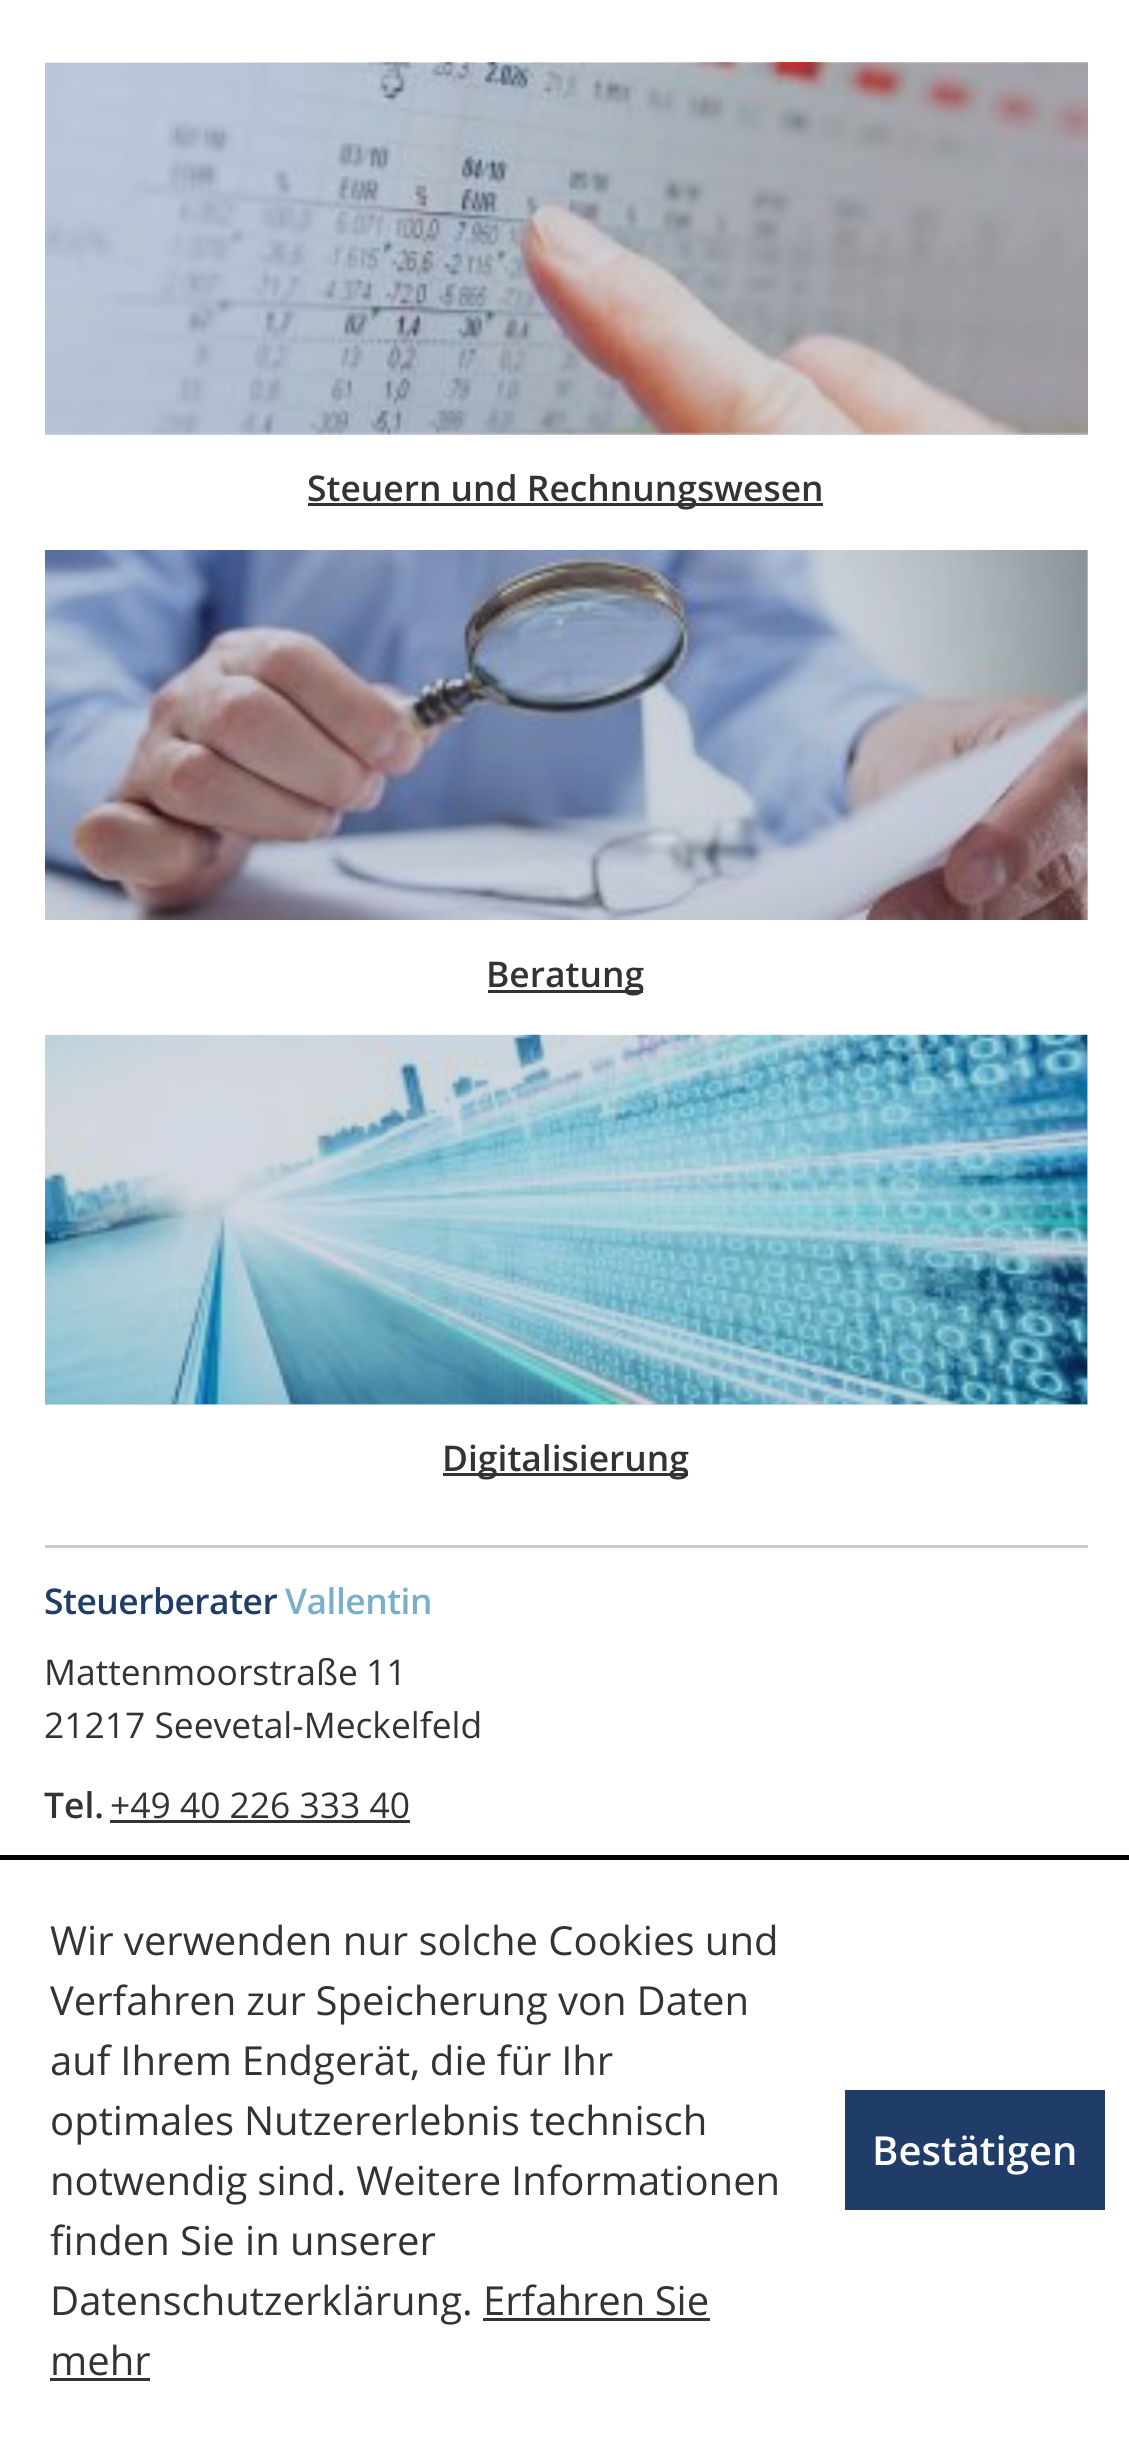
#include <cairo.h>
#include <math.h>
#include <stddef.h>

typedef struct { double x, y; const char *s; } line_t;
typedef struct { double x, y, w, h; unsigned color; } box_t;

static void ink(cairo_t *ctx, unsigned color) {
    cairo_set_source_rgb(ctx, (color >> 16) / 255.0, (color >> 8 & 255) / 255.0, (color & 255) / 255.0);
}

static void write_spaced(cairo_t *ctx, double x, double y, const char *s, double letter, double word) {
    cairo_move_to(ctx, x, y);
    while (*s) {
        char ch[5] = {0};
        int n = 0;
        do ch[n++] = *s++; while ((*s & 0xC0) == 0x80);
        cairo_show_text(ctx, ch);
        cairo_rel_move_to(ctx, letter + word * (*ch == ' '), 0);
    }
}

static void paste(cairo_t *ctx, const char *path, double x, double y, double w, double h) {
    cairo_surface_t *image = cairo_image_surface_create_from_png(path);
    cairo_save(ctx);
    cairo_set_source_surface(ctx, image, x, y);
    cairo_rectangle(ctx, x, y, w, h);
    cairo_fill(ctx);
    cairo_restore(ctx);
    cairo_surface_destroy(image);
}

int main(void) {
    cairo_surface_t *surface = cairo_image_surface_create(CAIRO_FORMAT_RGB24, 1129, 2439);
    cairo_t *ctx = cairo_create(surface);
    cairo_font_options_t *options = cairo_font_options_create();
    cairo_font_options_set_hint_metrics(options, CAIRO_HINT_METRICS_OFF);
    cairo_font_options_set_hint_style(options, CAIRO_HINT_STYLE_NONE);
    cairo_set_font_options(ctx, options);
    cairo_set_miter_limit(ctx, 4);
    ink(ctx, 0xFFFFFF);
    cairo_paint(ctx);
    {
        static const box_t items[] = {
            {45, 1035, 1043, 370, 0xD2D8E1},
            {1087, 550, 1, 370, 0xD2D8E1},
            {45, 432, 1043, 3, 0xD2D8E1},
        };
        for (size_t i = 0; i < sizeof items / sizeof *items; i++) {
            ink(ctx, items[i].color);
            cairo_rectangle(ctx, items[i].x, items[i].y, items[i].w, items[i].h);
            cairo_fill(ctx);
        }
    }
    paste(ctx, "media/1.png", 45, 62, 1043, 373);
    ink(ctx, 0x333333);
    cairo_rectangle(ctx, 308, 503, 515, 3);
    cairo_fill(ctx);
    cairo_select_font_face(ctx, "Open Sans SemiBold", CAIRO_FONT_SLANT_NORMAL, CAIRO_FONT_WEIGHT_NORMAL);
    cairo_set_font_size(ctx, 35.4);
    cairo_move_to(ctx, 307, 501);
    cairo_show_text(ctx, "Steuern und Rechnungswesen");
    paste(ctx, "media/2.png", 45, 550, 1043, 370);
    cairo_rectangle(ctx, 488, 990, 155, 3);
    cairo_fill(ctx);
    cairo_move_to(ctx, 486, 987);
    cairo_show_text(ctx, "Beratung");
    paste(ctx, "media/3.png", 45, 1034, 1043, 371);
    cairo_rectangle(ctx, 443, 1473, 245, 3);
    cairo_fill(ctx);
    cairo_move_to(ctx, 442, 1471);
    cairo_show_text(ctx, "Digitalisierung");
    ink(ctx, 0xCCCCCC);
    cairo_rectangle(ctx, 45, 1545, 1043, 3);
    cairo_fill(ctx);
    ink(ctx, 0x203C68);
    write_spaced(ctx, 44, 1614, "Steuerberater", -0.5, 0);
    ink(ctx, 0x78B0C8);
    write_spaced(ctx, 285, 1614, "Vallentin", -0.5, 0);
    cairo_select_font_face(ctx, "Open Sans", CAIRO_FONT_SLANT_NORMAL, CAIRO_FONT_WEIGHT_NORMAL);
    ink(ctx, 0x333333);
    write_spaced(ctx, 44, 1685, "Mattenmoorstraße 11", 0, -1);
    cairo_move_to(ctx, 44, 1738);
    cairo_show_text(ctx, "21217 Seevetal-Meckelfeld");
    cairo_select_font_face(ctx, "Open Sans SemiBold", CAIRO_FONT_SLANT_NORMAL, CAIRO_FONT_WEIGHT_NORMAL);
    cairo_move_to(ctx, 44, 1818);
    cairo_show_text(ctx, "Tel.");
    cairo_select_font_face(ctx, "Open Sans", CAIRO_FONT_SLANT_NORMAL, CAIRO_FONT_WEIGHT_NORMAL);
    cairo_move_to(ctx, 110, 1818);
    cairo_show_text(ctx, "+49 40 226 333 40");
    cairo_rectangle(ctx, 110, 1820, 300, 3);
    cairo_fill(ctx);
    ink(ctx, 0x000000);
    cairo_rectangle(ctx, 0, 1855, 1129, 5);
    cairo_fill(ctx);
    cairo_set_font_size(ctx, 40);
    ink(ctx, 0x333333);
    cairo_move_to(ctx, 50, 1955);
    cairo_show_text(ctx, "Wir verwenden nur solche Cookies und");
    {
        static const line_t items[] = {
            {50, 2015, "Verfahren zur Speicherung von Daten"},
            {50, 2075, "auf Ihrem Endgerät, die für Ihr"},
            {50, 2135, "optimales Nutzererlebnis technisch"},
            {50, 2195, "notwendig sind. Weitere Informationen"},
        };
        for (size_t i = 0; i < sizeof items / sizeof *items; i++) {
            write_spaced(ctx, items[i].x, items[i].y, items[i].s, 0, -0.5);
        }
    }
    cairo_move_to(ctx, 50, 2255);
    cairo_show_text(ctx, "finden Sie in unserer");
    cairo_move_to(ctx, 50, 2315);
    cairo_show_text(ctx, "Datenschutzerklärung.");
    write_spaced(ctx, 483, 2315, "Erfahren Sie", 0, -1);
    cairo_rectangle(ctx, 483, 2318, 227, 3);
    cairo_fill(ctx);
    cairo_move_to(ctx, 50, 2375);
    cairo_show_text(ctx, "mehr");
    cairo_rectangle(ctx, 50, 2378, 100, 3);
    cairo_fill(ctx);
    ink(ctx, 0x203C68);
    cairo_rectangle(ctx, 845, 2090, 260, 120);
    cairo_fill(ctx);
    cairo_select_font_face(ctx, "Open Sans SemiBold", CAIRO_FONT_SLANT_NORMAL, CAIRO_FONT_WEIGHT_NORMAL);
    ink(ctx, 0xFFFFFF);
    cairo_move_to(ctx, 872, 2165);
    cairo_show_text(ctx, "Bestätigen");
    cairo_surface_write_to_png(surface, "image.png");
    cairo_font_options_destroy(options);
    cairo_destroy(ctx);
    cairo_surface_destroy(surface);
    return 0;
}
